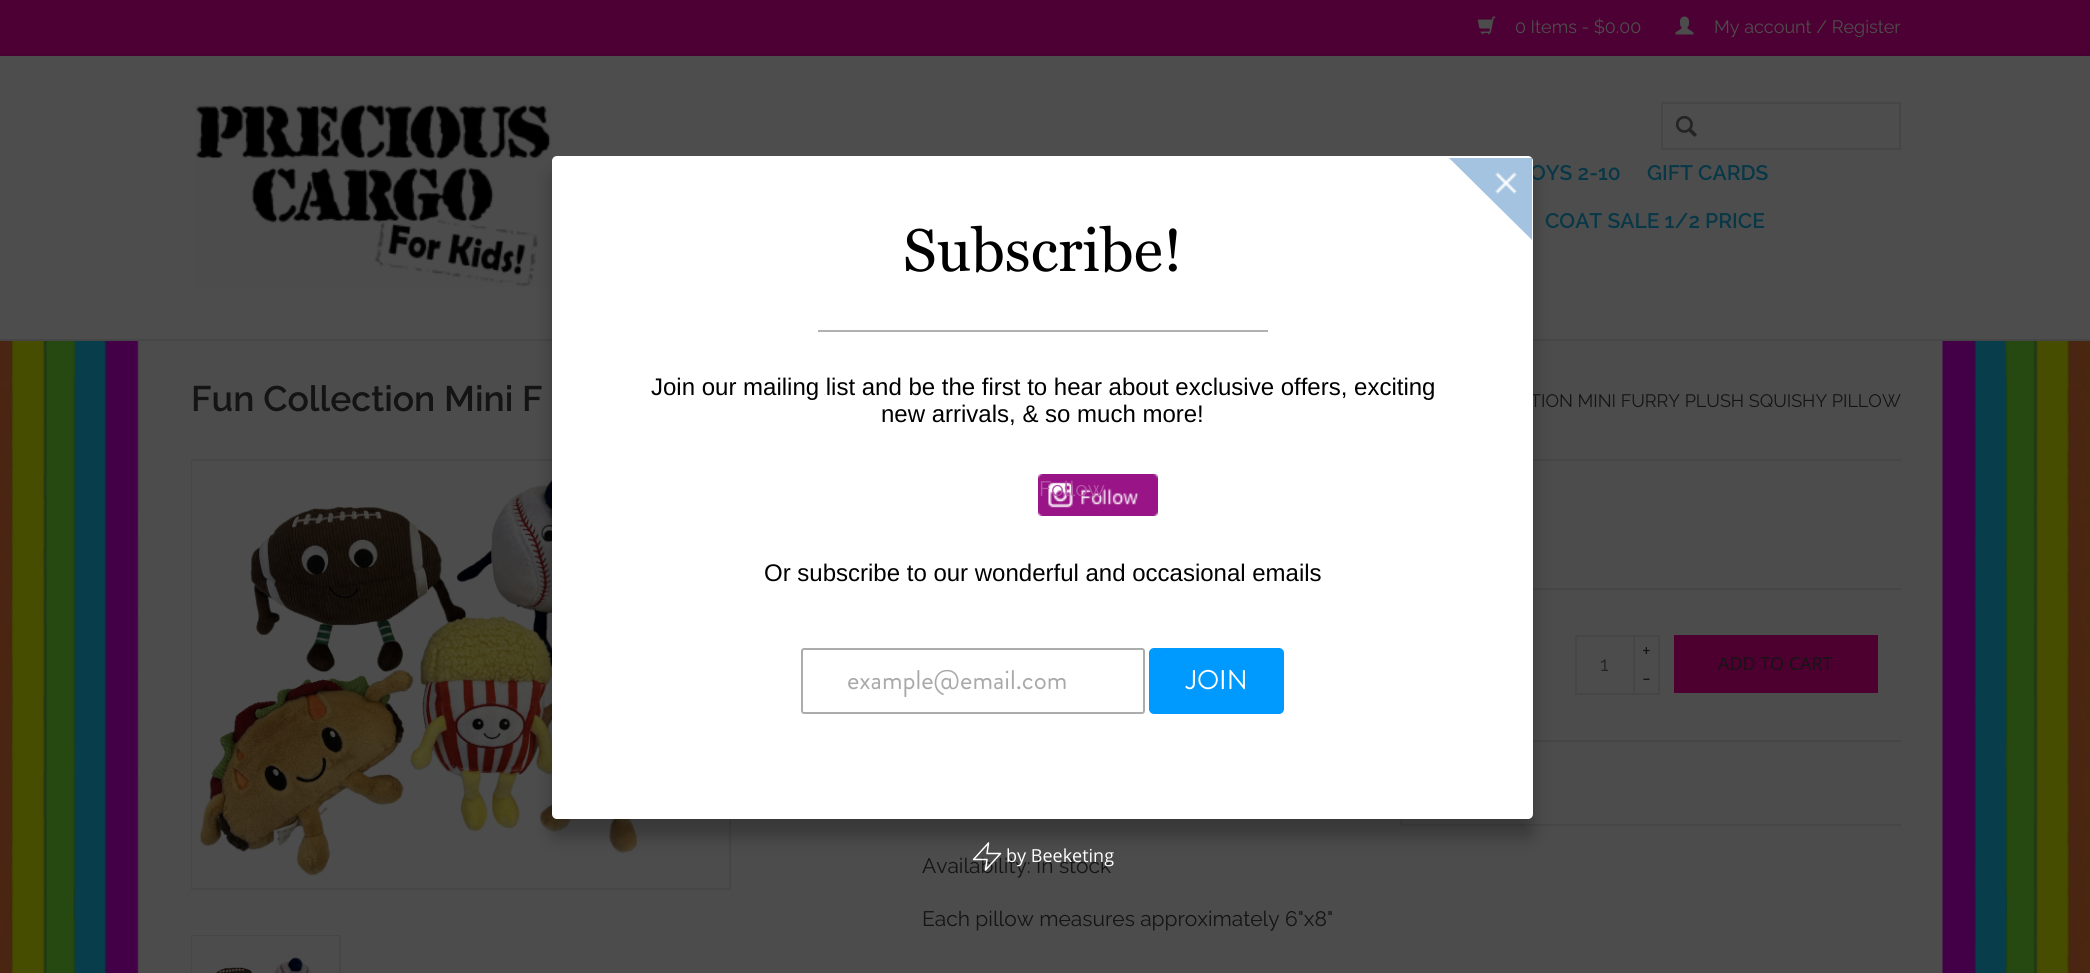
#include <cairo.h>
#include <math.h>
#include <stddef.h>

typedef struct { double x, y; const char *s; } line_t;
typedef struct { double x, y, w, h; unsigned color; } box_t;

static void ink(cairo_t *ctx, unsigned color) {
    cairo_set_source_rgb(ctx, (color >> 16) / 255.0, (color >> 8 & 255) / 255.0, (color & 255) / 255.0);
}

static void round_path(cairo_t *ctx, double x, double y, double w, double h, double r) {
    cairo_new_sub_path(ctx);
    cairo_arc(ctx, x + w - r, y + h - r, r, 0, M_PI / 2);
    cairo_arc(ctx, x + r, y + h - r, r, M_PI / 2, M_PI);
    cairo_arc(ctx, x + r, y + r, r, M_PI, 1.5 * M_PI);
    cairo_arc(ctx, x + w - r, y + r, r, 1.5 * M_PI, 2 * M_PI);
    cairo_close_path(ctx);
}

static void blur_box(cairo_t *ctx, double x, double y, double w, double h, double r, double blur, double alpha) {
    cairo_push_group_with_content(ctx, CAIRO_CONTENT_ALPHA);
    cairo_set_operator(ctx, CAIRO_OPERATOR_SOURCE);
    for (int i = 15; i >= -15 && fmin(w, h) + blur * i / 3 > 0; i -= 2) {
        double e = blur * i / 6;
        cairo_set_source_rgba(ctx, 0, 0, 0, alpha * erfc((i - 1) / 8.5) / 2);
        round_path(ctx, x - e, y - e, w + 2 * e, h + 2 * e, fmax(0, fmin(r + e + blur * .6, fmin(w, h) / 2 + e)));
        cairo_fill(ctx);
    }
    cairo_pattern_t *soft = cairo_pop_group(ctx);
    cairo_mask(ctx, soft);
    cairo_pattern_destroy(soft);
}

static void paste(cairo_t *ctx, const char *path, double x, double y, double w, double h) {
    cairo_surface_t *image = cairo_image_surface_create_from_png(path);
    cairo_save(ctx);
    cairo_set_source_surface(ctx, image, x, y);
    cairo_rectangle(ctx, x, y, w, h);
    cairo_fill(ctx);
    cairo_restore(ctx);
    cairo_surface_destroy(image);
}

int main(void) {
    cairo_surface_t *surface = cairo_image_surface_create(CAIRO_FORMAT_RGB24, 2090, 973);
    cairo_t *ctx = cairo_create(surface);
    cairo_font_options_t *options = cairo_font_options_create();
    cairo_font_options_set_hint_metrics(options, CAIRO_HINT_METRICS_OFF);
    cairo_font_options_set_hint_style(options, CAIRO_HINT_STYLE_NONE);
    cairo_set_font_options(ctx, options);
    cairo_set_miter_limit(ctx, 4);
    ink(ctx, 0xFFFFFF);
    cairo_paint(ctx);
    paste(ctx, "media/1.png", 0, 341, 2090, 632);
    {
        static const box_t items[] = {
            {0, 56, 2090, 283, 0x4D4D4D},
            {0, 339, 2090, 2, 0x464646},
            {0, 0, 2090, 54, 0x4D0033},
            {0, 54, 2090, 2, 0x47002F},
        };
        for (size_t i = 0; i < sizeof items / sizeof *items; i++) {
            ink(ctx, items[i].color);
            cairo_rectangle(ctx, items[i].x, items[i].y, items[i].w, items[i].h);
            cairo_fill(ctx);
        }
    }
    paste(ctx, "media/2.png", 1477, 16, 19, 19);
    cairo_select_font_face(ctx, "Raleway", CAIRO_FONT_SLANT_NORMAL, CAIRO_FONT_WEIGHT_NORMAL);
    cairo_set_font_size(ctx, 18);
    ink(ctx, 0x4D4D4D);
    cairo_move_to(ctx, 1515, 33);
    cairo_show_text(ctx, "0 Items - $0.00");
    paste(ctx, "media/3.png", 1675, 16, 19, 19);
    cairo_move_to(ctx, 1714, 33);
    cairo_show_text(ctx, "My account / Register");
    paste(ctx, "media/4.png", 195, 104, 356, 183);
    cairo_rectangle(ctx, 1662, 103, 238, 46);
    ink(ctx, 0x464646);
    cairo_stroke(ctx);
    paste(ctx, "media/5.png", 1675, 115, 22, 22);
    cairo_select_font_face(ctx, "Raleway SemiBold", CAIRO_FONT_SLANT_NORMAL, CAIRO_FONT_WEIGHT_NORMAL);
    cairo_set_font_size(ctx, 21);
    ink(ctx, 0x083847);
    {
        static const line_t items[] = {
            {1530, 180, "OYS 2-10"},
            {1647, 180, "GIFT CARDS"},
            {1545, 228, "COAT SALE 1/2 PRICE"},
        };
        for (size_t i = 0; i < sizeof items / sizeof *items; i++) {
            cairo_move_to(ctx, items[i].x, items[i].y);
            cairo_show_text(ctx, items[i].s);
        }
    }
    cairo_rectangle(ctx, 192, 460, 538, 429);
    ink(ctx, 0x464646);
    cairo_stroke(ctx);
    paste(ctx, "media/8.png", 192, 460, 537, 428);
    {
        static const box_t items[] = {
            {1533, 459, 368, 2, 0x464646},
            {1533, 588, 368, 2, 0x464646},
            {1533, 740, 368, 2, 0x464646},
            {1400, 824, 501, 2, 0x464646},
            {1400, 819, 2, 6, 0x464646},
        };
        for (size_t i = 0; i < sizeof items / sizeof *items; i++) {
            ink(ctx, items[i].color);
            cairo_rectangle(ctx, items[i].x, items[i].y, items[i].w, items[i].h);
            cairo_fill(ctx);
        }
    }
    ink(ctx, 0x000000);
    blur_box(ctx, 552, 174, 981, 663, 5, 9, 0.27);
    cairo_select_font_face(ctx, "Raleway", CAIRO_FONT_SLANT_NORMAL, CAIRO_FONT_WEIGHT_NORMAL);
    cairo_set_font_size(ctx, 18);
    ink(ctx, 0x141414);
    cairo_move_to(ctx, 1530, 407);
    cairo_show_text(ctx, "TION MINI FURRY PLUSH SQUISHY PILLOW");
    ink(ctx, 0xFFFFFF);
    round_path(ctx, 552, 156, 981, 663, 5);
    cairo_fill(ctx);
    ink(ctx, 0xA3C3E0);
    cairo_new_path(ctx);
    cairo_move_to(ctx, 1449, 158);
    cairo_line_to(ctx, 1532, 158);
    cairo_line_to(ctx, 1532, 240);
    cairo_close_path(ctx);
    cairo_fill(ctx);
    paste(ctx, "media/6.png", 1495, 172, 22, 22);
    cairo_select_font_face(ctx, "Georgia", CAIRO_FONT_SLANT_NORMAL, CAIRO_FONT_WEIGHT_NORMAL);
    cairo_set_font_size(ctx, 60);
    ink(ctx, 0x000000);
    cairo_move_to(ctx, 903, 271);
    cairo_show_text(ctx, "Subscribe!");
    ink(ctx, 0xB1B1B1);
    cairo_rectangle(ctx, 818, 330, 450, 2);
    cairo_fill(ctx);
    cairo_select_font_face(ctx, "Liberation Sans", CAIRO_FONT_SLANT_NORMAL, CAIRO_FONT_WEIGHT_NORMAL);
    cairo_set_font_size(ctx, 24);
    ink(ctx, 0x000000);
    cairo_move_to(ctx, 651, 395);
    cairo_show_text(ctx, "Join our mailing list and be the first to hear about exclusive offers, exciting");
    cairo_move_to(ctx, 881, 422);
    cairo_show_text(ctx, "new arrivals, & so much more!");
    paste(ctx, "media/7.png", 1038, 474, 120, 42);
    cairo_select_font_face(ctx, "Raleway", CAIRO_FONT_SLANT_NORMAL, CAIRO_FONT_WEIGHT_NORMAL);
    cairo_set_font_size(ctx, 21);
    ink(ctx, 0xB453A7);
    cairo_move_to(ctx, 1039, 496);
    cairo_show_text(ctx, "Follow");
    cairo_select_font_face(ctx, "Liberation Sans", CAIRO_FONT_SLANT_NORMAL, CAIRO_FONT_WEIGHT_NORMAL);
    cairo_set_font_size(ctx, 24);
    ink(ctx, 0x000000);
    cairo_move_to(ctx, 764, 581);
    cairo_show_text(ctx, "Or subscribe to our wonderful and occasional emails");
    round_path(ctx, 802, 649, 342, 64, 2);
    ink(ctx, 0xACACAC);
    cairo_stroke(ctx);
    cairo_select_font_face(ctx, "Brandon Grotesque", CAIRO_FONT_SLANT_NORMAL, CAIRO_FONT_WEIGHT_NORMAL);
    cairo_set_font_size(ctx, 27);
    ink(ctx, 0xA9A9A9);
    cairo_move_to(ctx, 847, 689);
    cairo_show_text(ctx, "example@email.com");
    ink(ctx, 0x009AFF);
    round_path(ctx, 1149, 648, 135, 66, 5);
    cairo_fill(ctx);
    ink(ctx, 0xFFFFFF);
    cairo_move_to(ctx, 1186, 689);
    cairo_show_text(ctx, "JOIN");
    cairo_select_font_face(ctx, "Raleway", CAIRO_FONT_SLANT_NORMAL, CAIRO_FONT_WEIGHT_NORMAL);
    cairo_set_font_size(ctx, 21);
    ink(ctx, 0x141414);
    cairo_move_to(ctx, 922, 873);
    cairo_show_text(ctx, "Availability: In stock");
    cairo_new_path(ctx);
    cairo_move_to(ctx, 988.5, 843);
    cairo_line_to(ctx, 973.5, 859.5);
    cairo_line_to(ctx, 987, 859.5);
    cairo_line_to(ctx, 985.5, 870);
    cairo_line_to(ctx, 1000.5, 853.5);
    cairo_line_to(ctx, 987, 853.5);
    cairo_close_path(ctx);
    ink(ctx, 0xFFFFFF);
    cairo_set_line_width(ctx, 1.5);
    cairo_set_line_cap(ctx, CAIRO_LINE_CAP_ROUND);
    cairo_set_line_join(ctx, CAIRO_LINE_JOIN_ROUND);
    cairo_stroke(ctx);
    cairo_select_font_face(ctx, "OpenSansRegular", CAIRO_FONT_SLANT_NORMAL, CAIRO_FONT_WEIGHT_NORMAL);
    cairo_set_font_size(ctx, 18);
    cairo_move_to(ctx, 1006, 862);
    cairo_show_text(ctx, "by Beeketing");
    cairo_select_font_face(ctx, "Raleway SemiBold", CAIRO_FONT_SLANT_NORMAL, CAIRO_FONT_WEIGHT_NORMAL);
    cairo_set_font_size(ctx, 35.5);
    ink(ctx, 0x141414);
    cairo_move_to(ctx, 191, 411);
    cairo_show_text(ctx, "Fun Collection Mini F");
    cairo_rectangle(ctx, 192, 936, 148, 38);
    ink(ctx, 0x464646);
    cairo_set_line_width(ctx, 2);
    cairo_set_line_cap(ctx, CAIRO_LINE_CAP_BUTT);
    cairo_set_line_join(ctx, CAIRO_LINE_JOIN_MITER);
    cairo_stroke(ctx);
    paste(ctx, "media/9.png", 192, 936, 147, 37);
    cairo_rectangle(ctx, 1576, 636, 58, 58);
    cairo_stroke(ctx);
    cairo_select_font_face(ctx, "Raleway", CAIRO_FONT_SLANT_NORMAL, CAIRO_FONT_WEIGHT_NORMAL);
    cairo_set_font_size(ctx, 20);
    ink(ctx, 0x242424);
    cairo_move_to(ctx, 1600, 671);
    cairo_show_text(ctx, "1");
    {
        static const box_t items[] = {
            {1635, 635, 24, 2, 0x464646},
            {1658, 635, 2, 60, 0x464646},
            {1635, 693, 24, 2, 0x464646},
        };
        for (size_t i = 0; i < sizeof items / sizeof *items; i++) {
            ink(ctx, items[i].color);
            cairo_rectangle(ctx, items[i].x, items[i].y, items[i].w, items[i].h);
            cairo_fill(ctx);
        }
    }
    cairo_set_font_size(ctx, 21);
    ink(ctx, 0x141414);
    cairo_move_to(ctx, 1642, 658);
    cairo_show_text(ctx, "+");
    cairo_move_to(ctx, 1642, 685);
    cairo_show_text(ctx, "-");
    ink(ctx, 0x4D0030);
    cairo_rectangle(ctx, 1674, 635, 204, 58);
    cairo_fill(ctx);
    cairo_select_font_face(ctx, "Open Sans", CAIRO_FONT_SLANT_NORMAL, CAIRO_FONT_WEIGHT_NORMAL);
    cairo_set_font_size(ctx, 18);
    ink(ctx, 0x141414);
    cairo_move_to(ctx, 1718, 670);
    cairo_show_text(ctx, "ADD TO CART");
    cairo_select_font_face(ctx, "Raleway", CAIRO_FONT_SLANT_NORMAL, CAIRO_FONT_WEIGHT_NORMAL);
    cairo_set_font_size(ctx, 21);
    cairo_move_to(ctx, 922, 926);
    cairo_show_text(ctx, "Each pillow measures approximately 6\"x8\"");
    cairo_surface_write_to_png(surface, "image.png");
    cairo_font_options_destroy(options);
    cairo_destroy(ctx);
    cairo_surface_destroy(surface);
    return 0;
}
